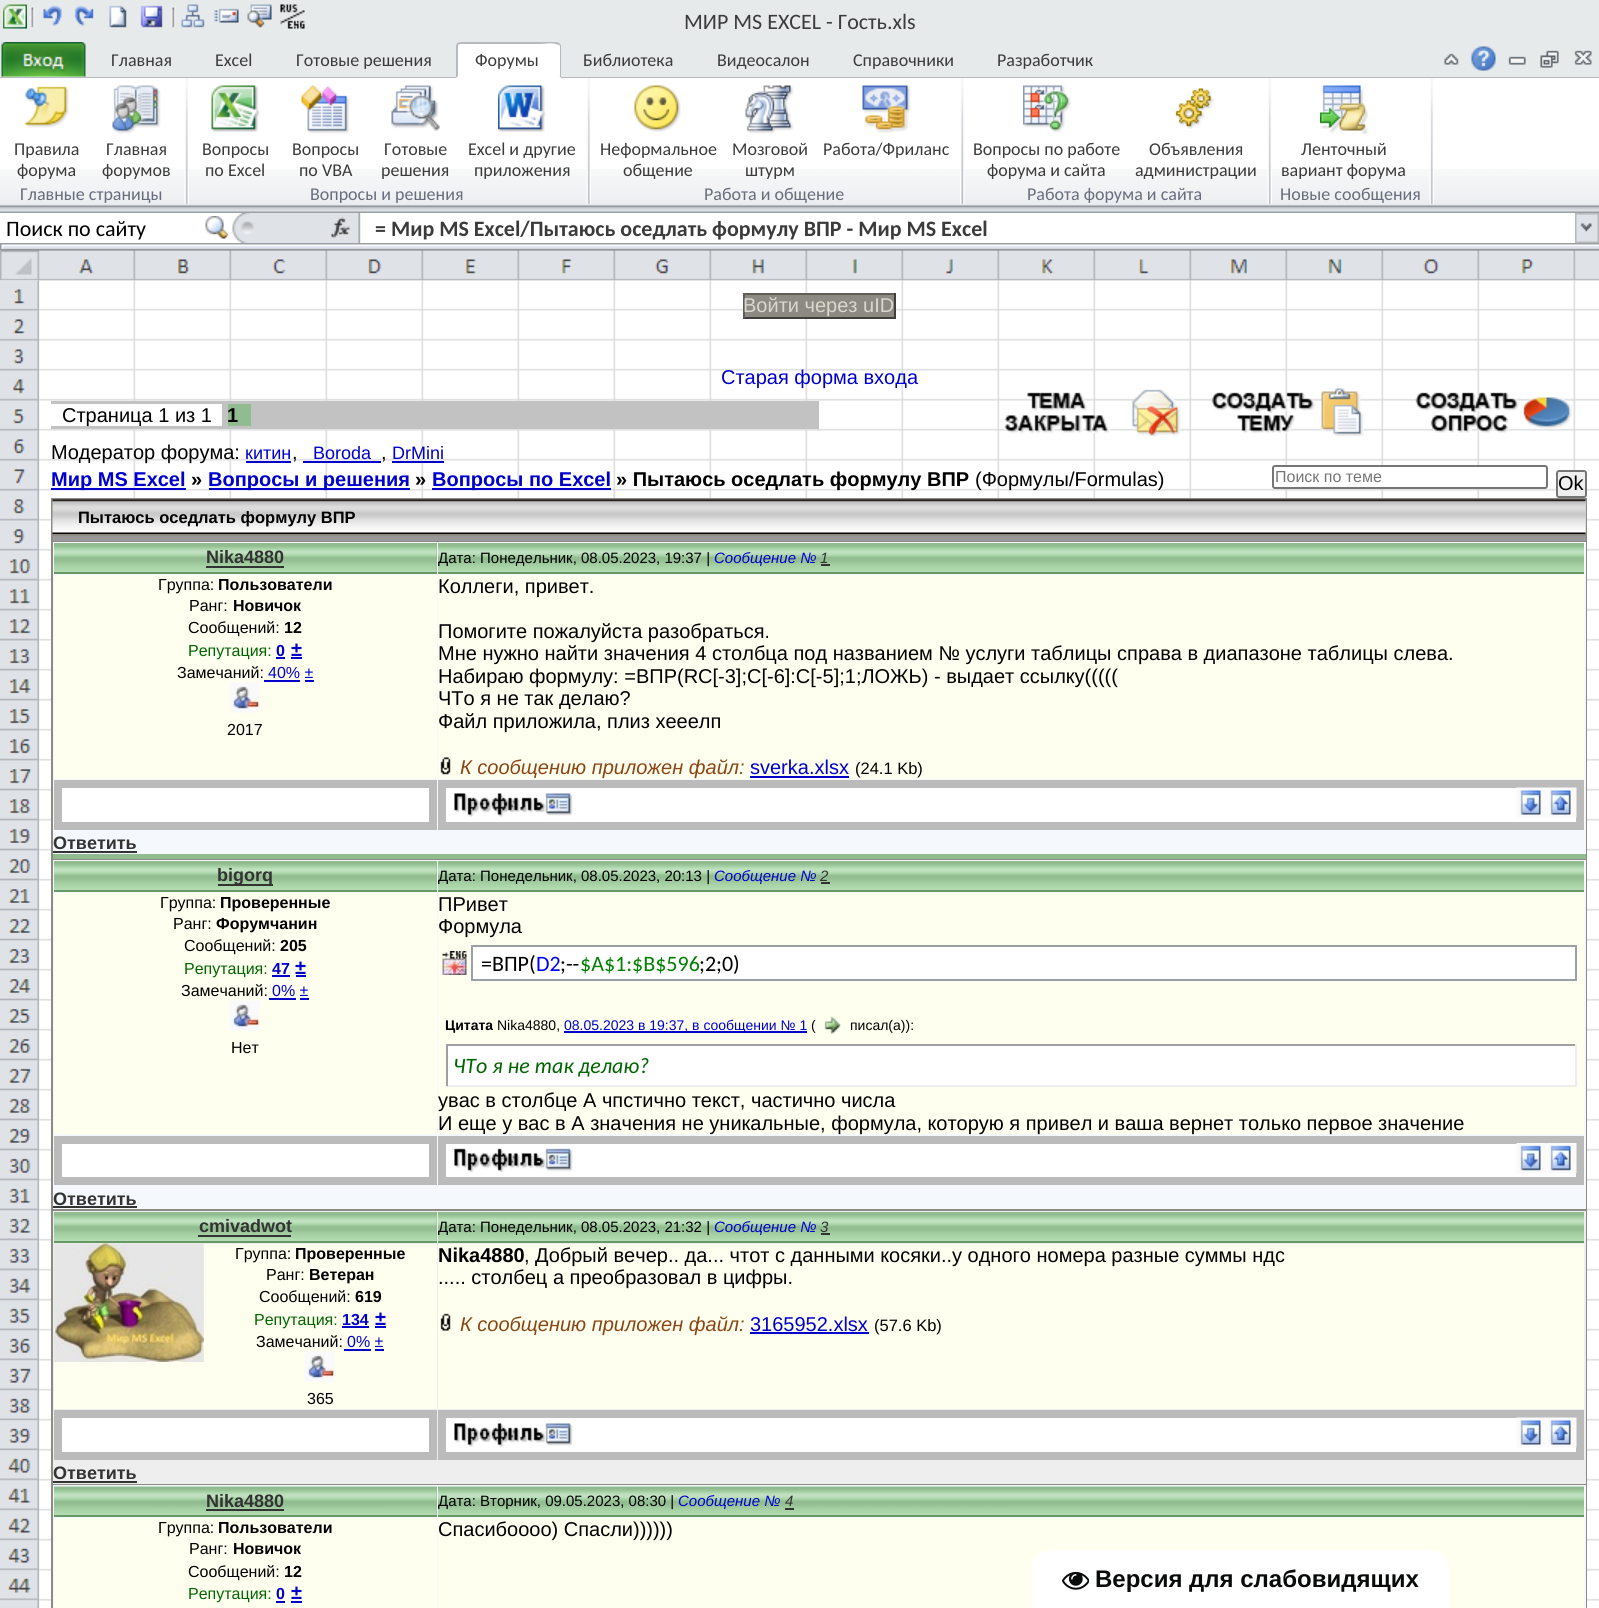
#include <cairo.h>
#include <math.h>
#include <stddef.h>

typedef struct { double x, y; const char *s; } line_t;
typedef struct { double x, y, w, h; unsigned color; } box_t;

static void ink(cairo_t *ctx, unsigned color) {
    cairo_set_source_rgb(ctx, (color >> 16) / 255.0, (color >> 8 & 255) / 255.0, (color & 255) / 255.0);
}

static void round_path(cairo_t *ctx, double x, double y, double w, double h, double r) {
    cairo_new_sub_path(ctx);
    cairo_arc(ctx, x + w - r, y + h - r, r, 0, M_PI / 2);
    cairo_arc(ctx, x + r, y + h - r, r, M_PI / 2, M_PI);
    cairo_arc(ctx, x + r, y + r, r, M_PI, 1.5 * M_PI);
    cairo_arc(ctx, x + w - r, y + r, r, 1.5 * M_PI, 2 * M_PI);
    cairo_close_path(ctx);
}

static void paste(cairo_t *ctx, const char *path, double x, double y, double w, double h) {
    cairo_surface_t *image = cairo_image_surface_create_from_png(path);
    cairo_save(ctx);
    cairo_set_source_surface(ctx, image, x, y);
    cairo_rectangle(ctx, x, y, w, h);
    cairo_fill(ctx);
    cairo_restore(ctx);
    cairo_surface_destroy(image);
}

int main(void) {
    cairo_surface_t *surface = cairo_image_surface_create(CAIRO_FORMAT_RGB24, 1599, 1608);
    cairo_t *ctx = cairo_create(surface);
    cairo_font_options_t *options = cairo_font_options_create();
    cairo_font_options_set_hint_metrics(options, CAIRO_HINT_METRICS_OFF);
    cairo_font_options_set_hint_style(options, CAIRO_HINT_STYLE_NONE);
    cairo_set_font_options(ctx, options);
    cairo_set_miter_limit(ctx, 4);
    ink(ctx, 0xFFFFFF);
    cairo_paint(ctx);
    ink(ctx, 0xE6EAEB);
    cairo_rectangle(ctx, 0, 0, 1599, 77);
    cairo_fill(ctx);
    paste(ctx, "media/1.png", 3, 4, 24, 25);
    paste(ctx, "media/2.png", 30, 6, 5, 22);
    paste(ctx, "media/3.png", 43, 5, 19, 21);
    paste(ctx, "media/4.png", 74, 5, 20, 21);
    paste(ctx, "media/5.png", 109, 5, 18, 23);
    paste(ctx, "media/6.png", 140, 5, 23, 23);
    paste(ctx, "media/2.png", 171, 6, 5, 22);
    paste(ctx, "media/7.png", 181, 4, 24, 24);
    paste(ctx, "media/8.png", 214, 8, 25, 15);
    paste(ctx, "media/9.png", 247, 4, 25, 24);
    paste(ctx, "media/10.png", 280, 4, 25, 25);
    cairo_select_font_face(ctx, "Carlito", CAIRO_FONT_SLANT_NORMAL, CAIRO_FONT_WEIGHT_NORMAL);
    cairo_set_font_size(ctx, 22);
    ink(ctx, 0x3B3B3B);
    cairo_move_to(ctx, 684, 29);
    cairo_show_text(ctx, "МИР MS EXCEL - Гость.xls");
    ink(ctx, 0xB6BABF);
    cairo_rectangle(ctx, 0, 77, 1599, 1);
    cairo_fill(ctx);
    paste(ctx, "media/11.png", 1, 42, 85, 35);
    cairo_set_font_size(ctx, 18);
    ink(ctx, 0x3B3B3B);
    {
        static const line_t items[] = {
            {111, 66, "Главная"},
            {215, 66, "Excel"},
            {296, 66, "Готовые решения"},
        };
        for (size_t i = 0; i < sizeof items / sizeof *items; i++) {
            cairo_move_to(ctx, items[i].x, items[i].y);
            cairo_show_text(ctx, items[i].s);
        }
    }
    ink(ctx, 0xFFFFFF);
    cairo_new_path(ctx);
    cairo_move_to(ctx, 461, 42);
    cairo_line_to(ctx, 556, 42);
    cairo_curve_to(ctx, 559, 42, 561, 44, 561, 47);
    cairo_line_to(ctx, 561, 78);
    cairo_line_to(ctx, 456, 78);
    cairo_line_to(ctx, 456, 47);
    cairo_curve_to(ctx, 456, 44, 458, 42, 461, 42);
    cairo_close_path(ctx);
    cairo_fill(ctx);
    ink(ctx, 0xB6BABF);
    cairo_new_path(ctx);
    cairo_move_to(ctx, 460, 42);
    cairo_line_to(ctx, 457, 43);
    cairo_line_to(ctx, 459, 45);
    cairo_line_to(ctx, 460, 44);
    cairo_line_to(ctx, 540, 44);
    cairo_curve_to(ctx, 546, 44, 553, 42, 558, 45);
    cairo_line_to(ctx, 560, 43);
    cairo_curve_to(ctx, 559, 43, 558, 42, 556, 42);
    cairo_close_path(ctx);
    cairo_fill(ctx);
    cairo_new_path(ctx);
    cairo_move_to(ctx, 561, 78);
    cairo_line_to(ctx, 561, 46);
    cairo_curve_to(ctx, 561, 45, 560.5, 44, 559.5, 43.5);
    cairo_line_to(ctx, 558.5, 44.5);
    cairo_line_to(ctx, 560, 46);
    cairo_line_to(ctx, 560, 76);
    cairo_line_to(ctx, 559, 76);
    cairo_close_path(ctx);
    cairo_fill(ctx);
    ink(ctx, 0xFFFFFF);
    cairo_new_path(ctx);
    cairo_move_to(ctx, 561, 78);
    cairo_line_to(ctx, 559, 76);
    cairo_line_to(ctx, 458, 76);
    cairo_line_to(ctx, 456, 78);
    cairo_close_path(ctx);
    cairo_fill(ctx);
    ink(ctx, 0xB6BABF);
    cairo_new_path(ctx);
    cairo_move_to(ctx, 456, 78);
    cairo_line_to(ctx, 458, 76);
    cairo_line_to(ctx, 458, 46);
    cairo_line_to(ctx, 458.5, 44.5);
    cairo_line_to(ctx, 457, 43);
    cairo_curve_to(ctx, 456.5, 44, 456, 45, 456, 46);
    cairo_close_path(ctx);
    cairo_fill(ctx);
    ink(ctx, 0x3B3B3B);
    {
        static const line_t items[] = {
            {475, 66, "Форумы"},
            {583, 66, "Библиотека"},
            {717, 66, "Видеосалон"},
            {853, 66, "Справочники"},
            {997, 66, "Разработчик"},
        };
        for (size_t i = 0; i < sizeof items / sizeof *items; i++) {
            cairo_move_to(ctx, items[i].x, items[i].y);
            cairo_show_text(ctx, items[i].s);
        }
    }
    paste(ctx, "media/12.png", 1444, 53, 15, 12);
    paste(ctx, "media/13.png", 1471, 46, 25, 25);
    paste(ctx, "media/14.png", 1508, 56, 18, 9);
    paste(ctx, "media/15.png", 1540, 50, 19, 18);
    paste(ctx, "media/16.png", 1574, 50, 18, 15);
    paste(ctx, "media/17.png", 0, 169, 1599, 44);
    paste(ctx, "media/18.png", 184, 78, 5, 126);
    paste(ctx, "media/19.png", 25, 86, 44, 42);
    cairo_move_to(ctx, 14, 155);
    cairo_show_text(ctx, "Правила");
    cairo_move_to(ctx, 17, 176);
    cairo_show_text(ctx, "форума");
    paste(ctx, "media/20.png", 112, 85, 49, 49);
    cairo_move_to(ctx, 106, 155);
    cairo_show_text(ctx, "Главная");
    cairo_move_to(ctx, 102, 176);
    cairo_show_text(ctx, "форумов");
    ink(ctx, 0x666D7C);
    cairo_move_to(ctx, 20, 200);
    cairo_show_text(ctx, "Главные страницы");
    paste(ctx, "media/21.png", 586, 78, 5, 126);
    paste(ctx, "media/22.png", 211, 85, 49, 47);
    ink(ctx, 0x3B3B3B);
    cairo_move_to(ctx, 202, 155);
    cairo_show_text(ctx, "Вопросы");
    cairo_move_to(ctx, 205, 176);
    cairo_show_text(ctx, "по Excel");
    paste(ctx, "media/23.png", 301, 85, 49, 49);
    cairo_move_to(ctx, 292, 155);
    cairo_show_text(ctx, "Вопросы");
    cairo_move_to(ctx, 299, 176);
    cairo_show_text(ctx, "по VBA");
    paste(ctx, "media/24.png", 391, 85, 49, 46);
    cairo_move_to(ctx, 384, 155);
    cairo_show_text(ctx, "Готовые");
    cairo_move_to(ctx, 381, 176);
    cairo_show_text(ctx, "решения");
    paste(ctx, "media/25.png", 498, 85, 48, 47);
    cairo_move_to(ctx, 468, 155);
    cairo_show_text(ctx, "Excel и другие");
    cairo_move_to(ctx, 474, 176);
    cairo_show_text(ctx, "приложения");
    ink(ctx, 0x666D7C);
    cairo_move_to(ctx, 310, 200);
    cairo_show_text(ctx, "Вопросы и решения");
    paste(ctx, "media/26.png", 960, 78, 5, 126);
    paste(ctx, "media/27.png", 634, 85, 47, 47);
    ink(ctx, 0x3B3B3B);
    cairo_move_to(ctx, 600, 155);
    cairo_show_text(ctx, "Неформальное");
    cairo_move_to(ctx, 623, 176);
    cairo_show_text(ctx, "общение");
    paste(ctx, "media/28.png", 745, 85, 49, 49);
    cairo_move_to(ctx, 732, 155);
    cairo_show_text(ctx, "Мозговой");
    cairo_move_to(ctx, 745, 176);
    cairo_show_text(ctx, "штурм");
    paste(ctx, "media/29.png", 862, 85, 49, 48);
    cairo_move_to(ctx, 823, 155);
    cairo_show_text(ctx, "Работа/Фриланс");
    ink(ctx, 0x666D7C);
    cairo_move_to(ctx, 704, 200);
    cairo_show_text(ctx, "Работа и общение");
    paste(ctx, "media/18.png", 1267, 78, 5, 126);
    paste(ctx, "media/30.png", 1023, 85, 48, 48);
    ink(ctx, 0x3B3B3B);
    cairo_move_to(ctx, 973, 155);
    cairo_show_text(ctx, "Вопросы по работе");
    cairo_move_to(ctx, 987, 176);
    cairo_show_text(ctx, "форума и сайта");
    paste(ctx, "media/31.png", 1175, 88, 39, 41);
    cairo_move_to(ctx, 1149, 155);
    cairo_show_text(ctx, "Объявления");
    cairo_move_to(ctx, 1135, 176);
    cairo_show_text(ctx, "администрации");
    ink(ctx, 0x666D7C);
    cairo_move_to(ctx, 1027, 200);
    cairo_show_text(ctx, "Работа форума и сайта");
    paste(ctx, "media/21.png", 1429, 78, 5, 126);
    paste(ctx, "media/32.png", 1320, 85, 48, 49);
    ink(ctx, 0x3B3B3B);
    cairo_move_to(ctx, 1301, 155);
    cairo_show_text(ctx, "Ленточный");
    cairo_move_to(ctx, 1281, 176);
    cairo_show_text(ctx, "вариант форума");
    ink(ctx, 0x666D7C);
    cairo_move_to(ctx, 1280, 200);
    cairo_show_text(ctx, "Новые сообщения");
    paste(ctx, "media/33.png", 232, 213, 129, 30);
    cairo_set_font_size(ctx, 22);
    ink(ctx, 0x000000);
    cairo_move_to(ctx, 6, 236);
    cairo_show_text(ctx, "Поиск по сайту");
    paste(ctx, "media/34.png", 205, 216, 24, 23);
    cairo_select_font_face(ctx, "Carlito", CAIRO_FONT_SLANT_NORMAL, CAIRO_FONT_WEIGHT_BOLD);
    ink(ctx, 0x3B3B3B);
    cairo_move_to(ctx, 375, 236);
    cairo_show_text(ctx, "= Мир MS Excel/Пытаюсь оседлать формулу ВПР - Мир MS Excel");
    paste(ctx, "media/35.png", 1575, 213, 24, 30);
    paste(ctx, "media/36.png", 0, 243, 1599, 38);
    paste(ctx, "media/37.png", 0, 280, 39, 1328);
    paste(ctx, "media/38.png", 39, 280, 1560, 1328);
    {
        static const box_t items[] = {
            {745, 295, 149, 22, 0x8D8A83},
            {743, 293, 153, 2, 0x615E58},
            {894, 293, 2, 25, 0x413F3B},
            {743, 317, 153, 2, 0x413F3B},
            {743, 293, 2, 25, 0x615E58},
        };
        for (size_t i = 0; i < sizeof items / sizeof *items; i++) {
            ink(ctx, items[i].color);
            cairo_rectangle(ctx, items[i].x, items[i].y, items[i].w, items[i].h);
            cairo_fill(ctx);
        }
    }
    cairo_select_font_face(ctx, "Liberation Sans", CAIRO_FONT_SLANT_NORMAL, CAIRO_FONT_WEIGHT_NORMAL);
    cairo_set_font_size(ctx, 20);
    ink(ctx, 0xDAD7CC);
    cairo_move_to(ctx, 743, 312);
    cairo_show_text(ctx, "Войти через uID");
    ink(ctx, 0x0000CD);
    cairo_move_to(ctx, 721, 384);
    cairo_show_text(ctx, "Старая форма входа");
    ink(ctx, 0xC2C2C2);
    cairo_rectangle(ctx, 51, 401, 768, 28);
    cairo_fill(ctx);
    ink(ctx, 0xFFFFFF);
    cairo_rectangle(ctx, 51, 404, 171, 22);
    cairo_fill(ctx);
    ink(ctx, 0x000000);
    cairo_move_to(ctx, 62, 422);
    cairo_show_text(ctx, "Страница 1 из 1");
    ink(ctx, 0x90BC90);
    cairo_rectangle(ctx, 228, 404, 23, 22);
    cairo_fill(ctx);
    cairo_select_font_face(ctx, "Liberation Sans", CAIRO_FONT_SLANT_NORMAL, CAIRO_FONT_WEIGHT_BOLD);
    ink(ctx, 0x000000);
    cairo_move_to(ctx, 227, 422);
    cairo_show_text(ctx, "1");
    paste(ctx, "media/39.png", 1004, 389, 177, 48);
    paste(ctx, "media/40.png", 1211, 388, 153, 49);
    paste(ctx, "media/41.png", 1415, 392, 157, 41);
    cairo_select_font_face(ctx, "Liberation Sans", CAIRO_FONT_SLANT_NORMAL, CAIRO_FONT_WEIGHT_NORMAL);
    cairo_move_to(ctx, 51, 459);
    cairo_show_text(ctx, "Модератор форума:");
    cairo_set_font_size(ctx, 18);
    ink(ctx, 0x0000CD);
    cairo_move_to(ctx, 245, 459);
    cairo_show_text(ctx, "китин");
    cairo_set_font_size(ctx, 20);
    ink(ctx, 0x000000);
    cairo_move_to(ctx, 292, 459);
    cairo_show_text(ctx, ",");
    ink(ctx, 0x0000CD);
    cairo_rectangle(ctx, 246, 461, 45, 2);
    cairo_fill(ctx);
    cairo_set_font_size(ctx, 18);
    cairo_move_to(ctx, 313, 459);
    cairo_show_text(ctx, "Boroda");
    cairo_set_font_size(ctx, 20);
    ink(ctx, 0x000000);
    cairo_move_to(ctx, 381, 459);
    cairo_show_text(ctx, ",");
    ink(ctx, 0x0000CD);
    cairo_rectangle(ctx, 303, 461, 78, 2);
    cairo_fill(ctx);
    cairo_rectangle(ctx, 392, 461, 52, 2);
    cairo_fill(ctx);
    cairo_set_font_size(ctx, 18);
    cairo_move_to(ctx, 392, 459);
    cairo_show_text(ctx, "DrMini");
    cairo_rectangle(ctx, 51, 488, 135, 2);
    cairo_fill(ctx);
    cairo_select_font_face(ctx, "Liberation Sans", CAIRO_FONT_SLANT_NORMAL, CAIRO_FONT_WEIGHT_BOLD);
    cairo_set_font_size(ctx, 20);
    cairo_move_to(ctx, 51, 486);
    cairo_show_text(ctx, "Мир MS Excel");
    ink(ctx, 0x000000);
    cairo_move_to(ctx, 191, 486);
    cairo_show_text(ctx, "»");
    ink(ctx, 0x0000CD);
    cairo_rectangle(ctx, 209, 488, 201, 2);
    cairo_fill(ctx);
    cairo_move_to(ctx, 208, 486);
    cairo_show_text(ctx, "Вопросы и решения");
    ink(ctx, 0x000000);
    cairo_move_to(ctx, 415, 486);
    cairo_show_text(ctx, "»");
    ink(ctx, 0x0000CD);
    cairo_rectangle(ctx, 432, 488, 179, 2);
    cairo_fill(ctx);
    cairo_move_to(ctx, 432, 486);
    cairo_show_text(ctx, "Вопросы по Excel");
    ink(ctx, 0x000000);
    cairo_move_to(ctx, 616, 486);
    cairo_show_text(ctx, "» Пытаюсь оседлать формулу ВПР");
    cairo_select_font_face(ctx, "Liberation Sans", CAIRO_FONT_SLANT_NORMAL, CAIRO_FONT_WEIGHT_NORMAL);
    cairo_move_to(ctx, 975, 486);
    cairo_show_text(ctx, "(Формулы/Formulas)");
    ink(ctx, 0xFFFFFF);
    round_path(ctx, 1273, 466, 274, 22, 2);
    cairo_fill_preserve(ctx);
    ink(ctx, 0x767676);
    cairo_stroke(ctx);
    cairo_set_font_size(ctx, 16);
    ink(ctx, 0x757575);
    cairo_move_to(ctx, 1275, 482);
    cairo_show_text(ctx, "Поиск по теме");
    ink(ctx, 0xEFEFEF);
    round_path(ctx, 1557, 471, 29, 26, 2);
    cairo_fill_preserve(ctx);
    ink(ctx, 0x767676);
    cairo_stroke(ctx);
    cairo_set_font_size(ctx, 20);
    ink(ctx, 0x000000);
    cairo_move_to(ctx, 1558, 490);
    cairo_show_text(ctx, "Ok");
    ink(ctx, 0x8C8A82);
    cairo_rectangle(ctx, 51, 498, 1536, 1110);
    cairo_fill(ctx);
    ink(ctx, 0xCCCCCC);
    cairo_rectangle(ctx, 1585, 500, 1, 34);
    cairo_fill(ctx);
    paste(ctx, "media/42.png", 52, 499, 1534, 35);
    cairo_select_font_face(ctx, "Liberation Sans", CAIRO_FONT_SLANT_NORMAL, CAIRO_FONT_WEIGHT_BOLD);
    cairo_set_font_size(ctx, 16.5);
    ink(ctx, 0x000000);
    cairo_move_to(ctx, 78, 523);
    cairo_show_text(ctx, "Пытаюсь оседлать формулу ВПР");
    {
        static const box_t items[] = {
            {53, 536, 1533, 5, 0x999999},
            {53, 542, 1533, 312, 0xF5F9FD},
            {53, 854, 1533, 5, 0x90BC90},
            {54, 543, 383, 29, 0x90BC90},
        };
        for (size_t i = 0; i < sizeof items / sizeof *items; i++) {
            ink(ctx, items[i].color);
            cairo_rectangle(ctx, items[i].x, items[i].y, items[i].w, items[i].h);
            cairo_fill(ctx);
        }
    }
    paste(ctx, "media/43.png", 54, 546, 383, 26);
    ink(ctx, 0x669966);
    cairo_rectangle(ctx, 54, 572, 383, 2);
    cairo_fill(ctx);
    cairo_set_font_size(ctx, 18);
    ink(ctx, 0x333333);
    cairo_move_to(ctx, 206, 563);
    cairo_show_text(ctx, "Nika4880");
    cairo_rectangle(ctx, 206, 566, 78, 2);
    cairo_fill(ctx);
    ink(ctx, 0x90BC90);
    cairo_rectangle(ctx, 438, 543, 1146, 3);
    cairo_fill(ctx);
    paste(ctx, "media/44.png", 438, 546, 1146, 26);
    ink(ctx, 0x669966);
    cairo_rectangle(ctx, 438, 572, 1146, 2);
    cairo_fill(ctx);
    cairo_select_font_face(ctx, "Liberation Sans", CAIRO_FONT_SLANT_NORMAL, CAIRO_FONT_WEIGHT_NORMAL);
    cairo_set_font_size(ctx, 15);
    ink(ctx, 0x000000);
    cairo_move_to(ctx, 438, 563);
    cairo_show_text(ctx, "Дата: Понедельник, 08.05.2023, 19:37 |");
    cairo_select_font_face(ctx, "Liberation Sans", CAIRO_FONT_SLANT_ITALIC, CAIRO_FONT_WEIGHT_NORMAL);
    ink(ctx, 0x0000CD);
    cairo_move_to(ctx, 714, 563);
    cairo_show_text(ctx, "Сообщение №");
    ink(ctx, 0x333333);
    cairo_move_to(ctx, 820, 563);
    cairo_show_text(ctx, "1");
    cairo_rectangle(ctx, 821, 564, 9, 2);
    cairo_fill(ctx);
    ink(ctx, 0xFFFFF0);
    cairo_rectangle(ctx, 54, 575, 383, 204);
    cairo_fill(ctx);
    cairo_select_font_face(ctx, "Liberation Sans", CAIRO_FONT_SLANT_NORMAL, CAIRO_FONT_WEIGHT_NORMAL);
    cairo_set_font_size(ctx, 16);
    ink(ctx, 0x000000);
    cairo_move_to(ctx, 158, 590);
    cairo_show_text(ctx, "Группа:");
    cairo_select_font_face(ctx, "Liberation Sans", CAIRO_FONT_SLANT_NORMAL, CAIRO_FONT_WEIGHT_BOLD);
    cairo_move_to(ctx, 218, 590);
    cairo_show_text(ctx, "Пользователи");
    cairo_select_font_face(ctx, "Liberation Sans", CAIRO_FONT_SLANT_NORMAL, CAIRO_FONT_WEIGHT_NORMAL);
    cairo_move_to(ctx, 189, 611);
    cairo_show_text(ctx, "Ранг:");
    cairo_select_font_face(ctx, "Liberation Sans", CAIRO_FONT_SLANT_NORMAL, CAIRO_FONT_WEIGHT_BOLD);
    cairo_move_to(ctx, 233, 611);
    cairo_show_text(ctx, "Новичок");
    cairo_select_font_face(ctx, "Liberation Sans", CAIRO_FONT_SLANT_NORMAL, CAIRO_FONT_WEIGHT_NORMAL);
    cairo_move_to(ctx, 188, 633);
    cairo_show_text(ctx, "Сообщений:");
    cairo_select_font_face(ctx, "Liberation Sans", CAIRO_FONT_SLANT_NORMAL, CAIRO_FONT_WEIGHT_BOLD);
    cairo_move_to(ctx, 284, 633);
    cairo_show_text(ctx, "12");
    cairo_select_font_face(ctx, "Liberation Sans", CAIRO_FONT_SLANT_NORMAL, CAIRO_FONT_WEIGHT_NORMAL);
    ink(ctx, 0x006400);
    cairo_move_to(ctx, 188, 656);
    cairo_show_text(ctx, "Репутация:");
    cairo_select_font_face(ctx, "Liberation Sans", CAIRO_FONT_SLANT_NORMAL, CAIRO_FONT_WEIGHT_BOLD);
    ink(ctx, 0x0000CD);
    cairo_move_to(ctx, 276, 656);
    cairo_show_text(ctx, "0");
    cairo_rectangle(ctx, 276, 657, 9, 2);
    cairo_fill(ctx);
    cairo_set_font_size(ctx, 20);
    cairo_move_to(ctx, 291, 656);
    cairo_show_text(ctx, "±");
    cairo_rectangle(ctx, 291, 657, 11, 2);
    cairo_fill(ctx);
    cairo_select_font_face(ctx, "Liberation Sans", CAIRO_FONT_SLANT_NORMAL, CAIRO_FONT_WEIGHT_NORMAL);
    cairo_set_font_size(ctx, 16);
    ink(ctx, 0x000000);
    cairo_move_to(ctx, 177, 678);
    cairo_show_text(ctx, "Замечаний:");
    ink(ctx, 0x0000CD);
    cairo_move_to(ctx, 268, 678);
    cairo_show_text(ctx, "40% ±");
    cairo_rectangle(ctx, 264, 680, 36, 2);
    cairo_fill(ctx);
    cairo_rectangle(ctx, 305, 680, 9, 2);
    cairo_fill(ctx);
    paste(ctx, "media/45.png", 229, 682, 31, 31);
    ink(ctx, 0x000000);
    cairo_move_to(ctx, 227, 735);
    cairo_show_text(ctx, "2017");
    ink(ctx, 0xFFFFF0);
    cairo_rectangle(ctx, 438, 575, 1146, 204);
    cairo_fill(ctx);
    cairo_set_font_size(ctx, 20);
    ink(ctx, 0x000000);
    {
        static const line_t items[] = {
            {438, 593, "Коллеги, привет."},
            {438, 638, "Помогите пожалуйста разобраться."},
            {438, 660, "Мне нужно найти значения 4 столбца под названием № услуги таблицы справа в диапазоне таблицы слева."},
            {438, 683, "Набираю формулу: =ВПР(RC[-3];C[-6]:C[-5];1;ЛОЖЬ) - выдает ссылку((((("},
            {438, 705, "ЧТо я не так делаю?"},
            {438, 728, "Файл приложила, плиз хееелп"},
        };
        for (size_t i = 0; i < sizeof items / sizeof *items; i++) {
            cairo_move_to(ctx, items[i].x, items[i].y);
            cairo_show_text(ctx, items[i].s);
        }
    }
    paste(ctx, "media/46.png", 440, 757, 11, 18);
    cairo_select_font_face(ctx, "Liberation Sans", CAIRO_FONT_SLANT_ITALIC, CAIRO_FONT_WEIGHT_NORMAL);
    ink(ctx, 0x8B4513);
    cairo_move_to(ctx, 460, 774);
    cairo_show_text(ctx, "К сообщению приложен файл:");
    cairo_select_font_face(ctx, "Liberation Sans", CAIRO_FONT_SLANT_NORMAL, CAIRO_FONT_WEIGHT_NORMAL);
    ink(ctx, 0x0000CD);
    cairo_move_to(ctx, 750, 774);
    cairo_show_text(ctx, "sverka.xlsx");
    cairo_rectangle(ctx, 750, 776, 99, 2);
    cairo_fill(ctx);
    cairo_set_font_size(ctx, 16.5);
    ink(ctx, 0x000000);
    cairo_move_to(ctx, 855, 774);
    cairo_show_text(ctx, "(24.1 Kb)");
    ink(ctx, 0xFFFFFF);
    cairo_rectangle(ctx, 58, 784, 375, 42);
    cairo_fill_preserve(ctx);
    ink(ctx, 0xBBBBBB);
    cairo_set_line_width(ctx, 8);
    cairo_stroke(ctx);
    ink(ctx, 0xFFFFFF);
    cairo_rectangle(ctx, 442, 784, 1138, 42);
    cairo_fill_preserve(ctx);
    ink(ctx, 0xBBBBBB);
    cairo_stroke(ctx);
    paste(ctx, "media/47.png", 454, 793, 119, 25);
    paste(ctx, "media/48.png", 1516, 787, 31, 31);
    paste(ctx, "media/49.png", 1546, 787, 31, 31);
    cairo_select_font_face(ctx, "Liberation Sans", CAIRO_FONT_SLANT_NORMAL, CAIRO_FONT_WEIGHT_BOLD);
    cairo_set_font_size(ctx, 18);
    ink(ctx, 0x333333);
    cairo_move_to(ctx, 53, 849);
    cairo_show_text(ctx, "Ответить");
    {
        static const box_t items[] = {
            {53, 851, 84, 2, 0x333333},
            {53, 860, 1533, 349, 0xF5F9FD},
            {54, 861, 383, 29, 0x90BC90},
        };
        for (size_t i = 0; i < sizeof items / sizeof *items; i++) {
            ink(ctx, items[i].color);
            cairo_rectangle(ctx, items[i].x, items[i].y, items[i].w, items[i].h);
            cairo_fill(ctx);
        }
    }
    paste(ctx, "media/50.png", 54, 864, 383, 26);
    ink(ctx, 0x669966);
    cairo_rectangle(ctx, 54, 890, 383, 2);
    cairo_fill(ctx);
    ink(ctx, 0x333333);
    cairo_rectangle(ctx, 218, 884, 55, 2);
    cairo_fill(ctx);
    cairo_move_to(ctx, 217, 881);
    cairo_show_text(ctx, "bigorq");
    ink(ctx, 0x90BC90);
    cairo_rectangle(ctx, 438, 861, 1146, 3);
    cairo_fill(ctx);
    paste(ctx, "media/51.png", 438, 864, 1146, 26);
    ink(ctx, 0x669966);
    cairo_rectangle(ctx, 438, 890, 1146, 2);
    cairo_fill(ctx);
    cairo_select_font_face(ctx, "Liberation Sans", CAIRO_FONT_SLANT_NORMAL, CAIRO_FONT_WEIGHT_NORMAL);
    cairo_set_font_size(ctx, 15);
    ink(ctx, 0x000000);
    cairo_move_to(ctx, 438, 881);
    cairo_show_text(ctx, "Дата: Понедельник, 08.05.2023, 20:13 |");
    cairo_select_font_face(ctx, "Liberation Sans", CAIRO_FONT_SLANT_ITALIC, CAIRO_FONT_WEIGHT_NORMAL);
    ink(ctx, 0x0000CD);
    cairo_move_to(ctx, 714, 881);
    cairo_show_text(ctx, "Сообщение №");
    ink(ctx, 0x333333);
    cairo_move_to(ctx, 820, 881);
    cairo_show_text(ctx, "2");
    cairo_rectangle(ctx, 821, 882, 9, 2);
    cairo_fill(ctx);
    ink(ctx, 0xFFFFF0);
    cairo_rectangle(ctx, 54, 893, 383, 241);
    cairo_fill(ctx);
    cairo_select_font_face(ctx, "Liberation Sans", CAIRO_FONT_SLANT_NORMAL, CAIRO_FONT_WEIGHT_NORMAL);
    cairo_set_font_size(ctx, 16);
    ink(ctx, 0x000000);
    cairo_move_to(ctx, 160, 908);
    cairo_show_text(ctx, "Группа:");
    cairo_select_font_face(ctx, "Liberation Sans", CAIRO_FONT_SLANT_NORMAL, CAIRO_FONT_WEIGHT_BOLD);
    cairo_move_to(ctx, 220, 908);
    cairo_show_text(ctx, "Проверенные");
    cairo_select_font_face(ctx, "Liberation Sans", CAIRO_FONT_SLANT_NORMAL, CAIRO_FONT_WEIGHT_NORMAL);
    cairo_move_to(ctx, 173, 929);
    cairo_show_text(ctx, "Ранг:");
    cairo_select_font_face(ctx, "Liberation Sans", CAIRO_FONT_SLANT_NORMAL, CAIRO_FONT_WEIGHT_BOLD);
    cairo_move_to(ctx, 216, 929);
    cairo_show_text(ctx, "Форумчанин");
    cairo_select_font_face(ctx, "Liberation Sans", CAIRO_FONT_SLANT_NORMAL, CAIRO_FONT_WEIGHT_NORMAL);
    cairo_move_to(ctx, 184, 951);
    cairo_show_text(ctx, "Сообщений:");
    cairo_select_font_face(ctx, "Liberation Sans", CAIRO_FONT_SLANT_NORMAL, CAIRO_FONT_WEIGHT_BOLD);
    cairo_move_to(ctx, 280, 951);
    cairo_show_text(ctx, "205");
    cairo_select_font_face(ctx, "Liberation Sans", CAIRO_FONT_SLANT_NORMAL, CAIRO_FONT_WEIGHT_NORMAL);
    ink(ctx, 0x006400);
    cairo_move_to(ctx, 184, 974);
    cairo_show_text(ctx, "Репутация:");
    cairo_select_font_face(ctx, "Liberation Sans", CAIRO_FONT_SLANT_NORMAL, CAIRO_FONT_WEIGHT_BOLD);
    ink(ctx, 0x0000CD);
    cairo_move_to(ctx, 272, 974);
    cairo_show_text(ctx, "47");
    cairo_rectangle(ctx, 272, 975, 18, 2);
    cairo_fill(ctx);
    cairo_set_font_size(ctx, 20);
    cairo_move_to(ctx, 295, 974);
    cairo_show_text(ctx, "±");
    cairo_rectangle(ctx, 296, 975, 10, 2);
    cairo_fill(ctx);
    cairo_select_font_face(ctx, "Liberation Sans", CAIRO_FONT_SLANT_NORMAL, CAIRO_FONT_WEIGHT_NORMAL);
    cairo_set_font_size(ctx, 16);
    ink(ctx, 0x000000);
    cairo_move_to(ctx, 181, 996);
    cairo_show_text(ctx, "Замечаний:");
    ink(ctx, 0x0000CD);
    cairo_move_to(ctx, 272, 996);
    cairo_show_text(ctx, "0% ±");
    cairo_rectangle(ctx, 269, 998, 27, 2);
    cairo_fill(ctx);
    cairo_rectangle(ctx, 300, 998, 9, 2);
    cairo_fill(ctx);
    paste(ctx, "media/45.png", 229, 1000, 31, 31);
    ink(ctx, 0x000000);
    cairo_move_to(ctx, 231, 1053);
    cairo_show_text(ctx, "Нет");
    ink(ctx, 0xFFFFF0);
    cairo_rectangle(ctx, 438, 893, 1146, 241);
    cairo_fill(ctx);
    cairo_set_font_size(ctx, 20);
    ink(ctx, 0x000000);
    cairo_move_to(ctx, 438, 911);
    cairo_show_text(ctx, "ПРивет");
    cairo_move_to(ctx, 438, 933);
    cairo_show_text(ctx, "Формула");
    paste(ctx, "media/52.png", 442, 951, 25, 24);
    ink(ctx, 0xFFFFFF);
    cairo_rectangle(ctx, 472, 946, 1104, 34);
    cairo_fill_preserve(ctx);
    ink(ctx, 0x9AA0A6);
    cairo_set_line_width(ctx, 2);
    cairo_stroke(ctx);
    cairo_select_font_face(ctx, "Carlito", CAIRO_FONT_SLANT_NORMAL, CAIRO_FONT_WEIGHT_NORMAL);
    cairo_set_font_size(ctx, 22);
    ink(ctx, 0x000000);
    cairo_move_to(ctx, 481, 971);
    cairo_show_text(ctx, "=ВПР(");
    ink(ctx, 0x0000FF);
    cairo_move_to(ctx, 536, 971);
    cairo_show_text(ctx, "D2");
    ink(ctx, 0x000000);
    cairo_move_to(ctx, 560, 971);
    cairo_show_text(ctx, ";--");
    ink(ctx, 0x008000);
    cairo_move_to(ctx, 580, 971);
    cairo_show_text(ctx, "$A$1:$B$596");
    ink(ctx, 0x000000);
    cairo_move_to(ctx, 699, 971);
    cairo_show_text(ctx, ";2;0)");
    cairo_select_font_face(ctx, "Liberation Sans", CAIRO_FONT_SLANT_NORMAL, CAIRO_FONT_WEIGHT_BOLD);
    cairo_set_font_size(ctx, 14);
    cairo_move_to(ctx, 445, 1030);
    cairo_show_text(ctx, "Цитата");
    cairo_select_font_face(ctx, "Liberation Sans", CAIRO_FONT_SLANT_NORMAL, CAIRO_FONT_WEIGHT_NORMAL);
    cairo_move_to(ctx, 497, 1030);
    cairo_show_text(ctx, "Nika4880,");
    ink(ctx, 0x0000CD);
    cairo_rectangle(ctx, 564, 1031, 243, 2);
    cairo_fill(ctx);
    cairo_move_to(ctx, 564, 1030);
    cairo_show_text(ctx, "08.05.2023 в 19:37, в сообщении № 1");
    ink(ctx, 0x000000);
    cairo_move_to(ctx, 811, 1030);
    cairo_show_text(ctx, "(");
    paste(ctx, "media/53.png", 824, 1016, 17, 18);
    cairo_move_to(ctx, 850, 1030);
    cairo_show_text(ctx, "писал(а)):");
    {
        static const box_t items[] = {
            {448, 1046, 1127, 39, 0xFFFFFF},
            {446, 1044, 1131, 2, 0x9F9F9F},
            {1575, 1044, 2, 42, 0xEEEEEE},
            {446, 1085, 1131, 2, 0xEEEEEE},
            {446, 1044, 2, 42, 0x9F9F9F},
        };
        for (size_t i = 0; i < sizeof items / sizeof *items; i++) {
            ink(ctx, items[i].color);
            cairo_rectangle(ctx, items[i].x, items[i].y, items[i].w, items[i].h);
            cairo_fill(ctx);
        }
    }
    cairo_select_font_face(ctx, "Carlito", CAIRO_FONT_SLANT_ITALIC, CAIRO_FONT_WEIGHT_NORMAL);
    cairo_set_font_size(ctx, 22);
    ink(ctx, 0x006400);
    cairo_move_to(ctx, 453, 1073);
    cairo_show_text(ctx, "ЧТо я не так делаю?");
    cairo_select_font_face(ctx, "Liberation Sans", CAIRO_FONT_SLANT_NORMAL, CAIRO_FONT_WEIGHT_NORMAL);
    cairo_set_font_size(ctx, 20);
    ink(ctx, 0x000000);
    cairo_move_to(ctx, 438, 1107);
    cairo_show_text(ctx, "увас в столбце А чпстично текст, частично числа");
    cairo_move_to(ctx, 438, 1130);
    cairo_show_text(ctx, "И еще у вас в А значения не уникальные, формула, которую я привел и ваша вернет только первое значение");
    ink(ctx, 0xFFFFFF);
    cairo_rectangle(ctx, 58, 1140, 375, 41);
    cairo_fill_preserve(ctx);
    ink(ctx, 0xBBBBBB);
    cairo_set_line_width(ctx, 8);
    cairo_stroke(ctx);
    ink(ctx, 0xFFFFFF);
    cairo_rectangle(ctx, 442, 1140, 1138, 41);
    cairo_fill_preserve(ctx);
    ink(ctx, 0xBBBBBB);
    cairo_stroke(ctx);
    paste(ctx, "media/54.png", 454, 1148, 119, 25);
    paste(ctx, "media/55.png", 1516, 1143, 31, 30);
    paste(ctx, "media/56.png", 1546, 1143, 31, 30);
    cairo_select_font_face(ctx, "Liberation Sans", CAIRO_FONT_SLANT_NORMAL, CAIRO_FONT_WEIGHT_BOLD);
    cairo_set_font_size(ctx, 18);
    ink(ctx, 0x333333);
    cairo_move_to(ctx, 53, 1205);
    cairo_show_text(ctx, "Ответить");
    {
        static const box_t items[] = {
            {53, 1206, 84, 2, 0x333333},
            {53, 1211, 1533, 273, 0xEEEEEE},
            {54, 1212, 383, 29, 0x90BC90},
        };
        for (size_t i = 0; i < sizeof items / sizeof *items; i++) {
            ink(ctx, items[i].color);
            cairo_rectangle(ctx, items[i].x, items[i].y, items[i].w, items[i].h);
            cairo_fill(ctx);
        }
    }
    paste(ctx, "media/57.png", 54, 1215, 383, 26);
    ink(ctx, 0x669966);
    cairo_rectangle(ctx, 54, 1241, 383, 2);
    cairo_fill(ctx);
    ink(ctx, 0x333333);
    cairo_move_to(ctx, 199, 1232);
    cairo_show_text(ctx, "cmivadwot");
    cairo_rectangle(ctx, 198, 1235, 93, 2);
    cairo_fill(ctx);
    ink(ctx, 0x90BC90);
    cairo_rectangle(ctx, 438, 1212, 1146, 3);
    cairo_fill(ctx);
    paste(ctx, "media/58.png", 438, 1215, 1146, 26);
    ink(ctx, 0x669966);
    cairo_rectangle(ctx, 438, 1241, 1146, 2);
    cairo_fill(ctx);
    cairo_select_font_face(ctx, "Liberation Sans", CAIRO_FONT_SLANT_NORMAL, CAIRO_FONT_WEIGHT_NORMAL);
    cairo_set_font_size(ctx, 15);
    ink(ctx, 0x000000);
    cairo_move_to(ctx, 438, 1232);
    cairo_show_text(ctx, "Дата: Понедельник, 08.05.2023, 21:32 |");
    cairo_select_font_face(ctx, "Liberation Sans", CAIRO_FONT_SLANT_ITALIC, CAIRO_FONT_WEIGHT_NORMAL);
    ink(ctx, 0x0000CD);
    cairo_move_to(ctx, 714, 1232);
    cairo_show_text(ctx, "Сообщение №");
    ink(ctx, 0x333333);
    cairo_move_to(ctx, 820, 1232);
    cairo_show_text(ctx, "3");
    cairo_rectangle(ctx, 821, 1233, 9, 2);
    cairo_fill(ctx);
    ink(ctx, 0xFFFFF0);
    cairo_rectangle(ctx, 54, 1244, 383, 165);
    cairo_fill(ctx);
    paste(ctx, "media/59.png", 54, 1243, 150, 119);
    cairo_select_font_face(ctx, "Liberation Sans", CAIRO_FONT_SLANT_NORMAL, CAIRO_FONT_WEIGHT_NORMAL);
    cairo_set_font_size(ctx, 16);
    ink(ctx, 0x000000);
    cairo_move_to(ctx, 235, 1259);
    cairo_show_text(ctx, "Группа:");
    cairo_select_font_face(ctx, "Liberation Sans", CAIRO_FONT_SLANT_NORMAL, CAIRO_FONT_WEIGHT_BOLD);
    cairo_move_to(ctx, 295, 1259);
    cairo_show_text(ctx, "Проверенные");
    cairo_select_font_face(ctx, "Liberation Sans", CAIRO_FONT_SLANT_NORMAL, CAIRO_FONT_WEIGHT_NORMAL);
    cairo_move_to(ctx, 266, 1280);
    cairo_show_text(ctx, "Ранг:");
    cairo_select_font_face(ctx, "Liberation Sans", CAIRO_FONT_SLANT_NORMAL, CAIRO_FONT_WEIGHT_BOLD);
    cairo_move_to(ctx, 309, 1280);
    cairo_show_text(ctx, "Ветеран");
    cairo_select_font_face(ctx, "Liberation Sans", CAIRO_FONT_SLANT_NORMAL, CAIRO_FONT_WEIGHT_NORMAL);
    cairo_move_to(ctx, 259, 1302);
    cairo_show_text(ctx, "Сообщений:");
    cairo_select_font_face(ctx, "Liberation Sans", CAIRO_FONT_SLANT_NORMAL, CAIRO_FONT_WEIGHT_BOLD);
    cairo_move_to(ctx, 355, 1302);
    cairo_show_text(ctx, "619");
    cairo_select_font_face(ctx, "Liberation Sans", CAIRO_FONT_SLANT_NORMAL, CAIRO_FONT_WEIGHT_NORMAL);
    ink(ctx, 0x006400);
    cairo_move_to(ctx, 254, 1325);
    cairo_show_text(ctx, "Репутация:");
    cairo_select_font_face(ctx, "Liberation Sans", CAIRO_FONT_SLANT_NORMAL, CAIRO_FONT_WEIGHT_BOLD);
    ink(ctx, 0x0000CD);
    cairo_move_to(ctx, 342, 1325);
    cairo_show_text(ctx, "134");
    cairo_rectangle(ctx, 342, 1326, 27, 2);
    cairo_fill(ctx);
    cairo_set_font_size(ctx, 20);
    cairo_move_to(ctx, 375, 1325);
    cairo_show_text(ctx, "±");
    cairo_rectangle(ctx, 375, 1326, 11, 2);
    cairo_fill(ctx);
    cairo_select_font_face(ctx, "Liberation Sans", CAIRO_FONT_SLANT_NORMAL, CAIRO_FONT_WEIGHT_NORMAL);
    cairo_set_font_size(ctx, 16);
    ink(ctx, 0x000000);
    cairo_move_to(ctx, 256, 1347);
    cairo_show_text(ctx, "Замечаний:");
    ink(ctx, 0x0000CD);
    cairo_move_to(ctx, 347, 1347);
    cairo_show_text(ctx, "0% ±");
    cairo_rectangle(ctx, 344, 1349, 27, 2);
    cairo_fill(ctx);
    cairo_rectangle(ctx, 375, 1349, 9, 2);
    cairo_fill(ctx);
    paste(ctx, "media/45.png", 304, 1351, 31, 31);
    ink(ctx, 0x000000);
    cairo_move_to(ctx, 307, 1404);
    cairo_show_text(ctx, "365");
    ink(ctx, 0xFFFFF0);
    cairo_rectangle(ctx, 438, 1244, 1146, 165);
    cairo_fill(ctx);
    cairo_select_font_face(ctx, "Liberation Sans", CAIRO_FONT_SLANT_NORMAL, CAIRO_FONT_WEIGHT_BOLD);
    cairo_set_font_size(ctx, 20);
    ink(ctx, 0x000000);
    cairo_move_to(ctx, 438, 1262);
    cairo_show_text(ctx, "Nika4880");
    cairo_select_font_face(ctx, "Liberation Sans", CAIRO_FONT_SLANT_NORMAL, CAIRO_FONT_WEIGHT_NORMAL);
    cairo_move_to(ctx, 524, 1262);
    cairo_show_text(ctx, ", Добрый вечер.. да... чтот с данными косяки..у одного номера разные суммы ндс");
    cairo_move_to(ctx, 438, 1284);
    cairo_show_text(ctx, "..... столбец а преобразовал в цифры.");
    paste(ctx, "media/60.png", 440, 1313, 11, 18);
    cairo_select_font_face(ctx, "Liberation Sans", CAIRO_FONT_SLANT_ITALIC, CAIRO_FONT_WEIGHT_NORMAL);
    ink(ctx, 0x8B4513);
    cairo_move_to(ctx, 460, 1331);
    cairo_show_text(ctx, "К сообщению приложен файл:");
    cairo_select_font_face(ctx, "Liberation Sans", CAIRO_FONT_SLANT_NORMAL, CAIRO_FONT_WEIGHT_NORMAL);
    ink(ctx, 0x0000CD);
    cairo_move_to(ctx, 750, 1331);
    cairo_show_text(ctx, "3165952.xlsx");
    cairo_rectangle(ctx, 750, 1332, 119, 2);
    cairo_fill(ctx);
    cairo_set_font_size(ctx, 16.5);
    ink(ctx, 0x000000);
    cairo_move_to(ctx, 874, 1331);
    cairo_show_text(ctx, "(57.6 Kb)");
    ink(ctx, 0xFFFFFF);
    cairo_rectangle(ctx, 58, 1414, 375, 42);
    cairo_fill_preserve(ctx);
    ink(ctx, 0xBBBBBB);
    cairo_stroke(ctx);
    ink(ctx, 0xFFFFFF);
    cairo_rectangle(ctx, 442, 1414, 1138, 42);
    cairo_fill_preserve(ctx);
    ink(ctx, 0xBBBBBB);
    cairo_stroke(ctx);
    paste(ctx, "media/47.png", 454, 1423, 119, 25);
    paste(ctx, "media/48.png", 1516, 1417, 31, 31);
    paste(ctx, "media/49.png", 1546, 1417, 31, 31);
    cairo_select_font_face(ctx, "Liberation Sans", CAIRO_FONT_SLANT_NORMAL, CAIRO_FONT_WEIGHT_BOLD);
    cairo_set_font_size(ctx, 18);
    ink(ctx, 0x333333);
    cairo_move_to(ctx, 53, 1479);
    cairo_show_text(ctx, "Ответить");
    {
        static const box_t items[] = {
            {53, 1481, 84, 2, 0x333333},
            {53, 1485, 1533, 123, 0xF5F9FD},
            {436, 1487, 1, 28, 0x90BC90},
        };
        for (size_t i = 0; i < sizeof items / sizeof *items; i++) {
            ink(ctx, items[i].color);
            cairo_rectangle(ctx, items[i].x, items[i].y, items[i].w, items[i].h);
            cairo_fill(ctx);
        }
    }
    paste(ctx, "media/61.png", 54, 1486, 383, 29);
    ink(ctx, 0x669966);
    cairo_rectangle(ctx, 54, 1515, 383, 2);
    cairo_fill(ctx);
    ink(ctx, 0x333333);
    cairo_move_to(ctx, 206, 1507);
    cairo_show_text(ctx, "Nika4880");
    cairo_rectangle(ctx, 206, 1509, 78, 2);
    cairo_fill(ctx);
    paste(ctx, "media/62.png", 438, 1486, 1146, 29);
    ink(ctx, 0x669966);
    cairo_rectangle(ctx, 438, 1515, 1146, 2);
    cairo_fill(ctx);
    cairo_select_font_face(ctx, "Liberation Sans", CAIRO_FONT_SLANT_NORMAL, CAIRO_FONT_WEIGHT_NORMAL);
    cairo_set_font_size(ctx, 15);
    ink(ctx, 0x000000);
    cairo_move_to(ctx, 438, 1506);
    cairo_show_text(ctx, "Дата: Вторник, 09.05.2023, 08:30 |");
    cairo_select_font_face(ctx, "Liberation Sans", CAIRO_FONT_SLANT_ITALIC, CAIRO_FONT_WEIGHT_NORMAL);
    ink(ctx, 0x0000CD);
    cairo_move_to(ctx, 678, 1506);
    cairo_show_text(ctx, "Сообщение №");
    ink(ctx, 0x333333);
    cairo_move_to(ctx, 785, 1506);
    cairo_show_text(ctx, "4");
    cairo_rectangle(ctx, 785, 1508, 9, 2);
    cairo_fill(ctx);
    ink(ctx, 0xFFFFF0);
    cairo_rectangle(ctx, 54, 1518, 383, 90);
    cairo_fill(ctx);
    cairo_select_font_face(ctx, "Liberation Sans", CAIRO_FONT_SLANT_NORMAL, CAIRO_FONT_WEIGHT_NORMAL);
    cairo_set_font_size(ctx, 16);
    ink(ctx, 0x000000);
    cairo_move_to(ctx, 158, 1533);
    cairo_show_text(ctx, "Группа:");
    cairo_select_font_face(ctx, "Liberation Sans", CAIRO_FONT_SLANT_NORMAL, CAIRO_FONT_WEIGHT_BOLD);
    cairo_move_to(ctx, 218, 1533);
    cairo_show_text(ctx, "Пользователи");
    cairo_select_font_face(ctx, "Liberation Sans", CAIRO_FONT_SLANT_NORMAL, CAIRO_FONT_WEIGHT_NORMAL);
    cairo_move_to(ctx, 189, 1554);
    cairo_show_text(ctx, "Ранг:");
    cairo_select_font_face(ctx, "Liberation Sans", CAIRO_FONT_SLANT_NORMAL, CAIRO_FONT_WEIGHT_BOLD);
    cairo_move_to(ctx, 233, 1554);
    cairo_show_text(ctx, "Новичок");
    cairo_select_font_face(ctx, "Liberation Sans", CAIRO_FONT_SLANT_NORMAL, CAIRO_FONT_WEIGHT_NORMAL);
    cairo_move_to(ctx, 188, 1577);
    cairo_show_text(ctx, "Сообщений:");
    cairo_select_font_face(ctx, "Liberation Sans", CAIRO_FONT_SLANT_NORMAL, CAIRO_FONT_WEIGHT_BOLD);
    cairo_move_to(ctx, 284, 1577);
    cairo_show_text(ctx, "12");
    cairo_select_font_face(ctx, "Liberation Sans", CAIRO_FONT_SLANT_NORMAL, CAIRO_FONT_WEIGHT_NORMAL);
    ink(ctx, 0x006400);
    cairo_move_to(ctx, 188, 1599);
    cairo_show_text(ctx, "Репутация:");
    cairo_select_font_face(ctx, "Liberation Sans", CAIRO_FONT_SLANT_NORMAL, CAIRO_FONT_WEIGHT_BOLD);
    ink(ctx, 0x0000CD);
    cairo_move_to(ctx, 276, 1599);
    cairo_show_text(ctx, "0");
    cairo_rectangle(ctx, 276, 1601, 9, 2);
    cairo_fill(ctx);
    cairo_set_font_size(ctx, 20);
    cairo_move_to(ctx, 291, 1599);
    cairo_show_text(ctx, "±");
    cairo_rectangle(ctx, 291, 1601, 11, 2);
    cairo_fill(ctx);
    ink(ctx, 0xFFFFF0);
    cairo_rectangle(ctx, 438, 1518, 1146, 90);
    cairo_fill(ctx);
    cairo_select_font_face(ctx, "Liberation Sans", CAIRO_FONT_SLANT_NORMAL, CAIRO_FONT_WEIGHT_NORMAL);
    ink(ctx, 0x000000);
    cairo_move_to(ctx, 438, 1536);
    cairo_show_text(ctx, "Спасибоооо) Спасли))))))");
    ink(ctx, 0xFFFFFF);
    cairo_new_path(ctx);
    cairo_move_to(ctx, 1050, 1550);
    cairo_line_to(ctx, 1431, 1550);
    cairo_curve_to(ctx, 1441, 1550, 1449, 1558, 1449, 1568);
    cairo_line_to(ctx, 1449, 1608);
    cairo_line_to(ctx, 1032, 1608);
    cairo_line_to(ctx, 1032, 1568);
    cairo_curve_to(ctx, 1032, 1558, 1040, 1550, 1050, 1550);
    cairo_close_path(ctx);
    cairo_fill(ctx);
    paste(ctx, "media/63.png", 1062, 1571, 27, 19);
    cairo_select_font_face(ctx, "Liberation Sans", CAIRO_FONT_SLANT_NORMAL, CAIRO_FONT_WEIGHT_BOLD);
    cairo_set_font_size(ctx, 24);
    ink(ctx, 0x090A0A);
    cairo_move_to(ctx, 1095, 1587);
    cairo_show_text(ctx, "Версия для слабовидящих");
    cairo_surface_write_to_png(surface, "image.png");
    cairo_font_options_destroy(options);
    cairo_destroy(ctx);
    cairo_surface_destroy(surface);
    return 0;
}
